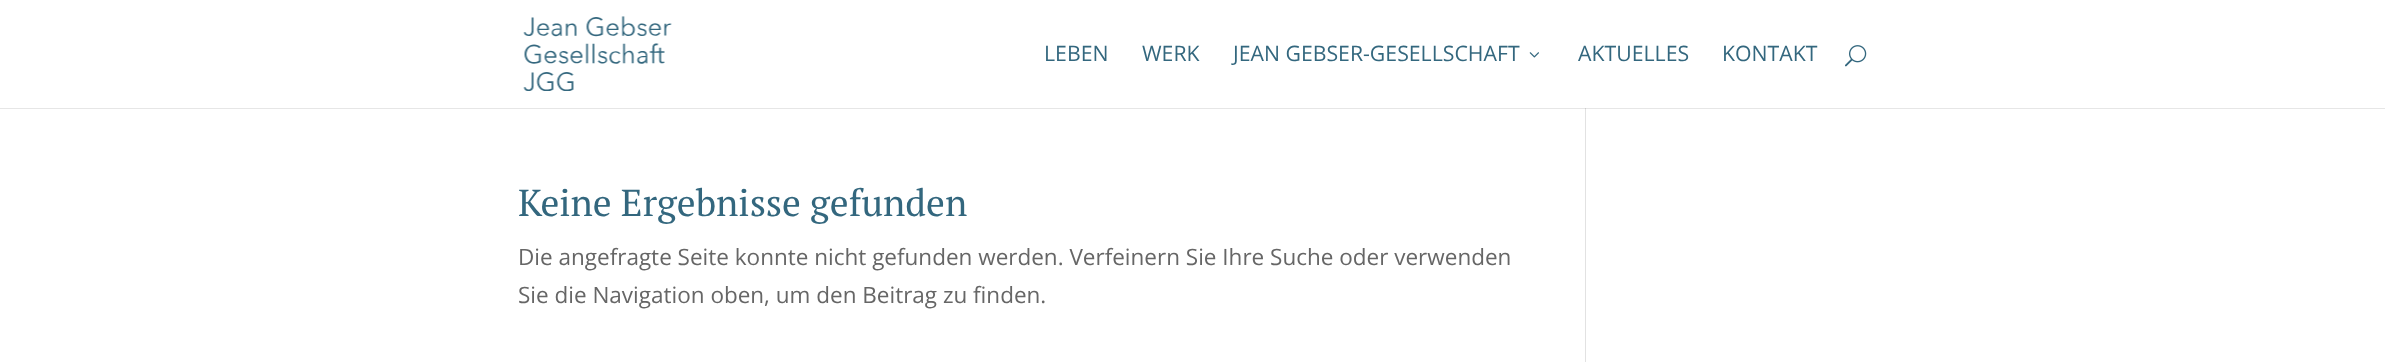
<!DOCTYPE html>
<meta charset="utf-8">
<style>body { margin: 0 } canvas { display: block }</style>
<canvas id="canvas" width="2385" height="362"></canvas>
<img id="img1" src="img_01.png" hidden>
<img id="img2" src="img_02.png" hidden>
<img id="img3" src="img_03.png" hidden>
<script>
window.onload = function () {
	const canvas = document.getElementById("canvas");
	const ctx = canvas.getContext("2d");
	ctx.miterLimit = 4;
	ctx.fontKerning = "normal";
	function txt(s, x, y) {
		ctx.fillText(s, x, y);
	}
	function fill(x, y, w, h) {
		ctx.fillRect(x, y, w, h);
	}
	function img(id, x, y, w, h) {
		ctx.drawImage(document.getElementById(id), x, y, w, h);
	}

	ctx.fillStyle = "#FFFFFF";
	fill(0, 0, 2385, 362);
	ctx.fillStyle = "#E6E6E6";
	fill(0, 108, 2385, 1);
	img("img1", 523, 16, 149, 75);
	img("img2", 1529, 52, 10, 6);
	img("img3", 1845, 45, 22, 22);
	ctx.fillStyle = "#E2E2E2";
	fill(1585, 108, 1, 254);
	ctx.fillStyle = "#CBCBCB";
	fill(1585, 108, 1, 1);
	ctx.font = "21.25px Open Sans";
	ctx.fillStyle = "#33677E";
	txt("LEBEN", 1044, 61);
	txt("WERK", 1142, 61);
	txt("JEAN GEBSER-GESELLSCHAFT", 1233, 61);
	txt("AKTUELLES", 1578, 61);
	txt("KONTAKT", 1722, 61);
	ctx.font = "37.5px PT Serif";
	txt("Keine Ergebnisse gefunden", 518, 216);
	ctx.font = "22.5px Open Sans";
	ctx.fillStyle = "#666666";
	txt("Die angefragte Seite konnte nicht gefunden werden. Verfeinern Sie Ihre Suche oder verwenden", 518, 265);
	txt("Sie die Navigation oben, um den Beitrag zu finden.", 518, 303);
};
</script>
